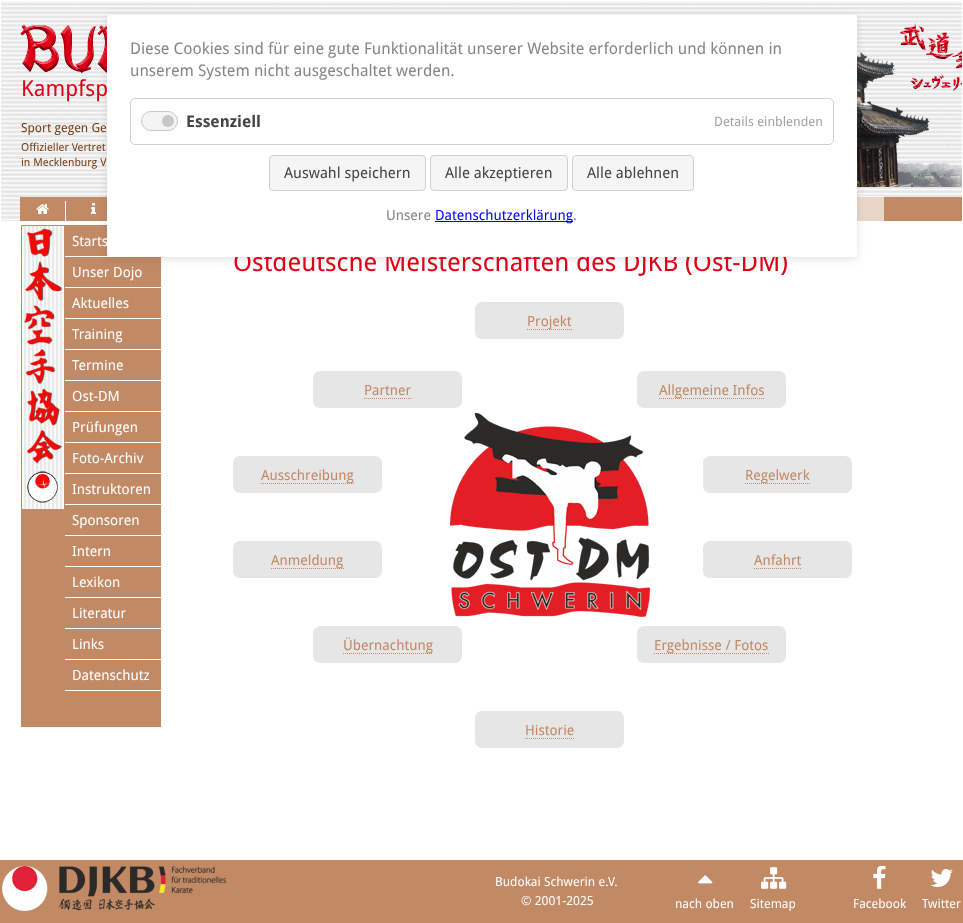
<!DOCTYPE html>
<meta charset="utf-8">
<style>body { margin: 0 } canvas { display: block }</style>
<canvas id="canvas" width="963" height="923"></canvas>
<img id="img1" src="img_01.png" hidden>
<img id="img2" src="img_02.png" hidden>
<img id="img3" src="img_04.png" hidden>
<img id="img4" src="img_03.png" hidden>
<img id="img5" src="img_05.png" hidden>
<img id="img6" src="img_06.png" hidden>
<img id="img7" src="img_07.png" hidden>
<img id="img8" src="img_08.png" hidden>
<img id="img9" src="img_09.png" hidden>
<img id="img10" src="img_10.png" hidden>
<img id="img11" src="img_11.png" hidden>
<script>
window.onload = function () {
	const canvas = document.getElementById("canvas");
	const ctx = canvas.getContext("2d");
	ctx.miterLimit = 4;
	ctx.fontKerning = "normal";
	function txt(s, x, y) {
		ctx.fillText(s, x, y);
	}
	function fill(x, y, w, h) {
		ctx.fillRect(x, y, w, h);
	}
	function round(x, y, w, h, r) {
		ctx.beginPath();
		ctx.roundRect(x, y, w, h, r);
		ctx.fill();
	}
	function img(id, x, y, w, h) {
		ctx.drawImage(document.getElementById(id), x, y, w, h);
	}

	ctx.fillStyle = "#FFFFFF";
	fill(0, 0, 963, 923);
	img("img1", 0, 0, 963, 3);
	img("img2", 1, 1, 961, 220);
	img("img3", 91, 203, 5, 11);
	ctx.fillStyle = "rgba(255, 255, 255, 0.65)";
	fill(857, 196, 27, 25);
	ctx.fillStyle = "#C28965";
	fill(21, 225, 140, 502);
	ctx.fillStyle = "#FFFFFF";
	fill(65, 256, 45, 1);
	ctx.fillStyle = "rgba(99, 99, 99, 0.2)";
	ctx.filter = "blur(4px)";
	ctx.beginPath();
	ctx.roundRect(107, 17, 750, 242, 3);
	ctx.fill();
	ctx.filter = "none";
	ctx.fillStyle = "#FFFFFF";
	fill(65, 201, 1, 24);
	img("img4", 36, 204, 13, 10);
	img("img5", 22, 226, 42, 283);
	fill(65, 287, 96, 1);
	fill(65, 318, 96, 1);
	fill(65, 349, 96, 1);
	fill(65, 380, 96, 1);
	fill(65, 411, 96, 1);
	fill(65, 442, 96, 1);
	fill(65, 473, 96, 1);
	fill(65, 504, 96, 1);
	fill(65, 535, 96, 1);
	fill(65, 566, 96, 1);
	fill(65, 597, 96, 1);
	fill(65, 628, 96, 1);
	fill(65, 659, 96, 1);
	fill(65, 690, 96, 1);
	img("img6", 450, 413, 200, 204);
	ctx.fillStyle = "#E6E6E6";
	round(475, 302, 149, 37, 7);
	ctx.beginPath();
	ctx.moveTo(527, 329.5);
	ctx.lineTo(572, 329.5);
	ctx.strokeStyle = "#C28965";
	ctx.setLineDash([1, 1]);
	ctx.stroke();
	round(313, 371, 149, 37, 7);
	ctx.beginPath();
	ctx.moveTo(364, 398.5);
	ctx.lineTo(411, 398.5);
	ctx.stroke();
	round(637, 371, 149, 37, 7);
	ctx.beginPath();
	ctx.moveTo(659, 398.5);
	ctx.lineTo(764, 398.5);
	ctx.stroke();
	round(233, 456, 149, 37, 7);
	ctx.beginPath();
	ctx.moveTo(261, 483.5);
	ctx.lineTo(354, 483.5);
	ctx.stroke();
	round(703, 456, 149, 37, 7);
	ctx.beginPath();
	ctx.moveTo(745, 483.5);
	ctx.lineTo(810, 483.5);
	ctx.stroke();
	round(233, 541, 149, 37, 7);
	ctx.beginPath();
	ctx.moveTo(271, 568.5);
	ctx.lineTo(344, 568.5);
	ctx.stroke();
	round(703, 541, 149, 37, 7);
	ctx.beginPath();
	ctx.moveTo(754, 568.5);
	ctx.lineTo(801, 568.5);
	ctx.stroke();
	round(313, 626, 149, 37, 7);
	ctx.beginPath();
	ctx.moveTo(343, 653.5);
	ctx.lineTo(432, 653.5);
	ctx.stroke();
	round(637, 626, 149, 37, 7);
	ctx.beginPath();
	ctx.moveTo(654, 653.5);
	ctx.lineTo(769, 653.5);
	ctx.stroke();
	round(475, 711, 149, 37, 7);
	ctx.beginPath();
	ctx.moveTo(525, 738.5);
	ctx.lineTo(574, 738.5);
	ctx.stroke();
	ctx.fillStyle = "#C28965";
	fill(0, 860, 963, 63);
	img("img7", 2, 866, 224, 45);
	img("img8", 698, 875, 15, 9);
	img("img9", 761, 867, 26, 22);
	img("img10", 873, 866, 13, 23);
	img("img11", 930, 869, 23, 18);
	ctx.font = "22px Droid Sans";
	ctx.fillStyle = "#DF0118";
	txt("Kampfsp", 21, 96);
	ctx.font = "12.5px Droid Sans";
	ctx.fillStyle = "#773D14";
	txt("Sport gegen Ge", 21, 132);
	ctx.font = "11px Droid Sans";
	txt("Offizieller Vertret", 21, 151);
	txt("in Mecklenburg V", 21, 166);
	ctx.font = "14px Droid Sans";
	ctx.fillStyle = "#FFFFFF";
	txt("Starts", 72, 246);
	txt("Unser Dojo", 72, 277);
	txt("Aktuelles", 72, 308);
	txt("Training", 72, 339);
	txt("Termine", 72, 370);
	txt("Ost-DM", 72, 401);
	txt("Prüfungen", 72, 432);
	txt("Foto-Archiv", 72, 463);
	txt("Instruktoren", 72, 494);
	txt("Sponsoren", 72, 525);
	txt("Intern", 72, 556);
	txt("Lexikon", 72, 587);
	txt("Literatur", 72, 618);
	txt("Links", 72, 649);
	txt("Datenschutz", 72, 680);
	ctx.font = "25.7px Droid Sans";
	ctx.fillStyle = "#DF0118";
	txt("Ostdeutsche Meisterschaften des DJKB (Ost-DM)", 233, 271);
	ctx.fillStyle = "#FFFFFF";
	round(107, 15, 750, 242, 3);
	ctx.beginPath();
	ctx.roundRect(130.5, 98.5, 703, 46, 4.5);
	ctx.strokeStyle = "#D0D0D0";
	ctx.setLineDash([]);
	ctx.stroke();
	ctx.fillStyle = "#F4F4F4";
	ctx.beginPath();
	ctx.roundRect(141.5, 111.5, 36, 19, 9.5);
	ctx.fill();
	ctx.strokeStyle = "#C8C7C5";
	ctx.stroke();
	ctx.fillStyle = "#C8C7C5";
	ctx.beginPath();
	ctx.arc(168, 121, 6, 0, Math.PI * 2);
	ctx.fill();
	ctx.font = "bold 16px Droid Sans";
	ctx.fillStyle = "#444444";
	txt("Essenziell", 186, 127);
	ctx.font = "13px Droid Sans";
	ctx.fillStyle = "#A2A2A2";
	txt("Details einblenden", 714, 126);
	ctx.font = "14px Droid Sans";
	ctx.fillStyle = "#868686";
	txt(".", 573, 220);
	ctx.fillStyle = "#0000FF";
	fill(435, 221, 138, 1);
	txt("Datenschutzerklärung", 435, 220);
	ctx.fillStyle = "#868686";
	txt("Unsere", 386, 220);
	ctx.fillStyle = "#F5F5F5";
	ctx.beginPath();
	ctx.roundRect(572.5, 155.5, 121, 35, 3.5);
	ctx.fill();
	ctx.strokeStyle = "#CFCFCF";
	ctx.stroke();
	ctx.font = "15px Droid Sans";
	ctx.fillStyle = "#444444";
	txt("Alle ablehnen", 587, 178);
	ctx.fillStyle = "#F5F5F5";
	ctx.beginPath();
	ctx.roundRect(430.5, 155.5, 137, 35, 3.5);
	ctx.fill();
	ctx.stroke();
	ctx.fillStyle = "#444444";
	txt("Alle akzeptieren", 445, 178);
	ctx.fillStyle = "#F5F5F5";
	ctx.beginPath();
	ctx.roundRect(269.5, 155.5, 156, 35, 3.5);
	ctx.fill();
	ctx.stroke();
	ctx.fillStyle = "#444444";
	txt("Auswahl speichern", 284, 178);
	ctx.font = "16px Droid Sans";
	ctx.fillStyle = "#868686";
	txt("unserem System nicht ausgeschaltet werden.", 130, 76);
	txt("Diese Cookies sind für eine gute Funktionalität unserer Website erforderlich und können in", 130, 54);
	ctx.font = "14px Droid Sans";
	ctx.fillStyle = "#C28965";
	txt("Projekt", 527, 326);
	txt("Partner", 364, 395);
	txt("Allgemeine Infos", 659, 395);
	txt("Ausschreibung", 261, 480);
	txt("Regelwerk", 745, 480);
	txt("Anmeldung", 271, 565);
	txt("Anfahrt", 754, 565);
	txt("Übernachtung", 343, 650);
	txt("Ergebnisse / Fotos", 654, 650);
	txt("Historie", 525, 735);
	ctx.font = "12.5px Droid Sans";
	ctx.fillStyle = "#FFFFFF";
	txt("Budokai Schwerin e.V.", 495, 886);
	txt("© 2001-2025", 521, 905);
	txt("nach oben", 675, 908);
	txt("Sitemap", 750, 908);
	txt("Facebook", 853, 908);
	txt("Twitter", 922, 908);
};
</script>
